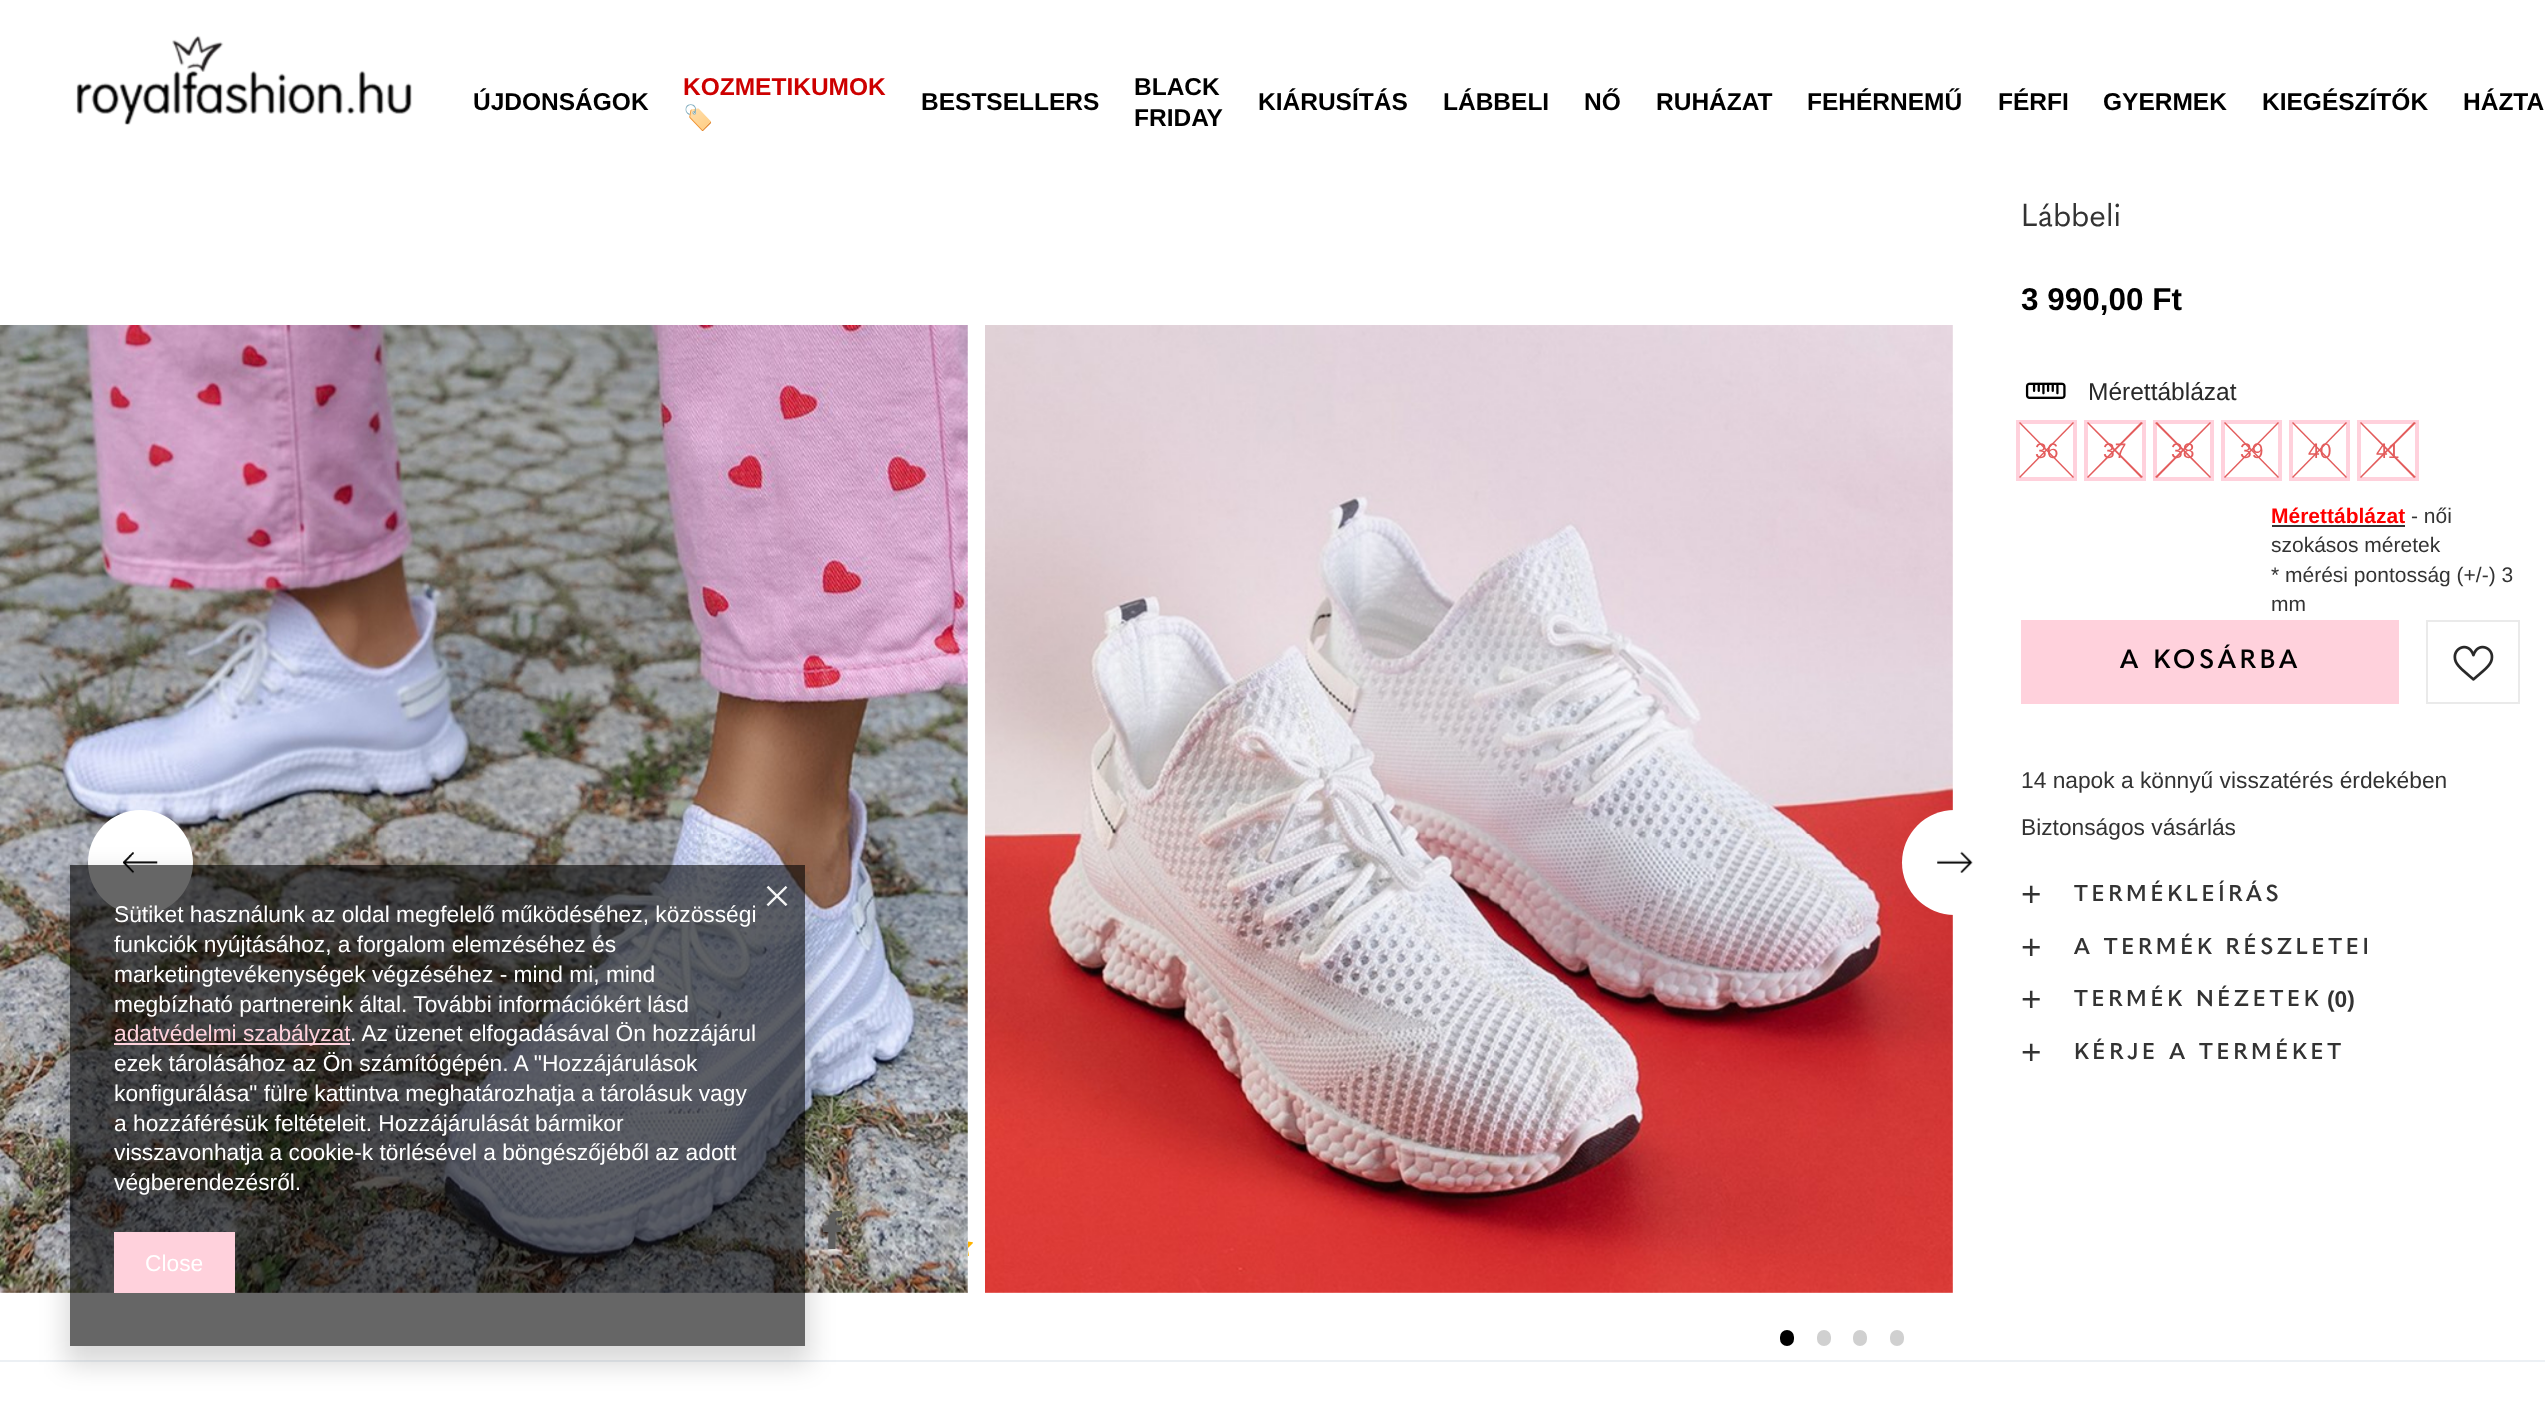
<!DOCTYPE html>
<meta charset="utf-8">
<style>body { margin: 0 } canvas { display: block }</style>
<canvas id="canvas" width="2545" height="1415"></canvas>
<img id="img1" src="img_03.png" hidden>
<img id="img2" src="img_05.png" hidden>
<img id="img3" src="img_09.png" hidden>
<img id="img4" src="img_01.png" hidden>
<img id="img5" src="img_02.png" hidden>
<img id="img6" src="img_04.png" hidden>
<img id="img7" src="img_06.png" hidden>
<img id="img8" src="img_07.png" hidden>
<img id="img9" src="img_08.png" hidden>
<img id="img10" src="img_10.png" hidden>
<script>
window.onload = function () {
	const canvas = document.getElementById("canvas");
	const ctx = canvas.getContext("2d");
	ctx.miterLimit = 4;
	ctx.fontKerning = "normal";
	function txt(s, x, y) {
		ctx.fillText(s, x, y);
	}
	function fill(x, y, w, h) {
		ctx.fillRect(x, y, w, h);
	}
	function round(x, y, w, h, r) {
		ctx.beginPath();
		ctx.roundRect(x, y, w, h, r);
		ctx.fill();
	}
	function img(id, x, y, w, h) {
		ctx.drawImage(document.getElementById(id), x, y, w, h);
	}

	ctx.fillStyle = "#FFFFFF";
	fill(0, 0, 2545, 1415);
	img("img1", 0, 325, 968, 968);
	ctx.beginPath();
	ctx.arc(140.5, 862.5, 52.5, 0, Math.PI * 2);
	ctx.fill();
	img("img2", 123, 852, 35, 22);
	img("img3", 823, 1211, 19, 38);
	ctx.fillStyle = "#ECF0F4";
	fill(0, 1360, 2545, 2);
	ctx.save();
	ctx.beginPath();
	ctx.moveTo(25, 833);
	ctx.lineTo(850, 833);
	ctx.lineTo(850, 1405);
	ctx.lineTo(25, 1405);
	ctx.closePath();
	ctx.moveTo(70, 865);
	ctx.lineTo(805, 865);
	ctx.lineTo(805, 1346);
	ctx.lineTo(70, 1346);
	ctx.closePath();
	ctx.clip("evenodd");
	ctx.fillStyle = "rgba(0, 0, 0, 0.15)";
	ctx.filter = "blur(13px)";
	ctx.beginPath();
	ctx.rect(65, 873, 745, 492);
	ctx.fill();
	ctx.filter = "none";
	ctx.restore();
	ctx.fillStyle = "rgba(0, 0, 0, 0.6)";
	fill(70, 865, 735, 481);
	img("img4", 766, 885, 22, 22);
	ctx.fillStyle = "#FFD1DC";
	fill(114, 1043, 236, 2);
	fill(114, 1232, 121, 61);
	img("img5", 76, 35, 336, 90);
	img("img6", 985, 325, 968, 968);
	ctx.fillStyle = "#FFFFFF";
	ctx.beginPath();
	ctx.arc(1954.5, 862.5, 52.5, 0, Math.PI * 2);
	ctx.fill();
	img("img7", 1937, 851, 36, 22);
	ctx.fillStyle = "#000000";
	round(1780, 1330, 14, 16, 7);
	ctx.fillStyle = "#D0D0D0";
	ctx.beginPath();
	ctx.roundRect(1818, 1331, 12, 14, 6);
	ctx.fill();
	ctx.strokeStyle = "#D0D0D0";
	ctx.lineWidth = 2;
	ctx.stroke();
	ctx.beginPath();
	ctx.roundRect(1854, 1331, 12, 14, 6);
	ctx.fill();
	ctx.stroke();
	ctx.beginPath();
	ctx.roundRect(1891, 1331, 12, 14, 6);
	ctx.fill();
	ctx.stroke();
	img("img8", 2025, 382, 41, 17);
	ctx.strokeStyle = "#FFD1DC";
	ctx.lineWidth = 4;
	ctx.strokeRect(2018, 422, 57, 57);
	ctx.fillStyle = "#E35C5C";
	ctx.beginPath();
	ctx.moveTo(2020, 422);
	ctx.lineTo(2074, 477);
	ctx.lineTo(2073, 478);
	ctx.lineTo(2019, 423);
	ctx.closePath();
	ctx.fill();
	ctx.beginPath();
	ctx.moveTo(2019, 477);
	ctx.lineTo(2073, 422);
	ctx.lineTo(2074, 423);
	ctx.lineTo(2020, 478);
	ctx.closePath();
	ctx.fill();
	ctx.strokeRect(2086, 422, 58, 57);
	ctx.beginPath();
	ctx.moveTo(2088, 422);
	ctx.lineTo(2143, 477);
	ctx.lineTo(2141, 478);
	ctx.lineTo(2087, 423);
	ctx.closePath();
	ctx.fill();
	ctx.beginPath();
	ctx.moveTo(2087, 477);
	ctx.lineTo(2141, 422);
	ctx.lineTo(2143, 423);
	ctx.lineTo(2088, 478);
	ctx.closePath();
	ctx.fill();
	ctx.strokeRect(2155, 422, 57, 57);
	ctx.beginPath();
	ctx.moveTo(2157, 422);
	ctx.lineTo(2211, 477);
	ctx.lineTo(2210, 478);
	ctx.lineTo(2155, 423);
	ctx.closePath();
	ctx.fill();
	ctx.beginPath();
	ctx.moveTo(2155, 477);
	ctx.lineTo(2210, 422);
	ctx.lineTo(2211, 423);
	ctx.lineTo(2157, 478);
	ctx.closePath();
	ctx.fill();
	ctx.strokeRect(2223, 422, 57, 57);
	ctx.beginPath();
	ctx.moveTo(2225, 422);
	ctx.lineTo(2279, 477);
	ctx.lineTo(2278, 478);
	ctx.lineTo(2224, 423);
	ctx.closePath();
	ctx.fill();
	ctx.beginPath();
	ctx.moveTo(2224, 477);
	ctx.lineTo(2278, 422);
	ctx.lineTo(2279, 423);
	ctx.lineTo(2225, 478);
	ctx.closePath();
	ctx.fill();
	ctx.strokeRect(2291, 422, 57, 57);
	ctx.beginPath();
	ctx.moveTo(2293, 422);
	ctx.lineTo(2347, 477);
	ctx.lineTo(2346, 478);
	ctx.lineTo(2292, 423);
	ctx.closePath();
	ctx.fill();
	ctx.beginPath();
	ctx.moveTo(2292, 477);
	ctx.lineTo(2346, 422);
	ctx.lineTo(2347, 423);
	ctx.lineTo(2293, 478);
	ctx.closePath();
	ctx.fill();
	ctx.strokeRect(2359, 422, 58, 57);
	ctx.beginPath();
	ctx.moveTo(2361, 422);
	ctx.lineTo(2416, 477);
	ctx.lineTo(2414, 478);
	ctx.lineTo(2360, 423);
	ctx.closePath();
	ctx.fill();
	ctx.beginPath();
	ctx.moveTo(2360, 477);
	ctx.lineTo(2414, 422);
	ctx.lineTo(2416, 423);
	ctx.lineTo(2361, 478);
	ctx.closePath();
	ctx.fill();
	ctx.fillStyle = "#333333";
	fill(2272, 525, 133, 2);
	ctx.fillStyle = "#FFD1DC";
	fill(2021, 620, 378, 84);
	ctx.strokeStyle = "#EAEAEA";
	ctx.lineWidth = 2;
	ctx.strokeRect(2427, 621, 92, 82);
	img("img9", 2453, 645, 41, 36);
	img("img10", 968, 1241, 5, 15);
	ctx.font = "22.75px Liberation Sans";
	ctx.fillStyle = "#FFFFFF";
	txt("Sütiket használunk az oldal megfelelő működéséhez, közösségi", 114, 922);
	txt("funkciók nyújtásához, a forgalom elemzéséhez és", 114, 952);
	txt("marketingtevékenységek végzéséhez - mind mi, mind", 114, 982);
	txt("megbízható partnereink által. További információkért lásd", 114, 1012);
	ctx.fillStyle = "#FFD1DC";
	txt("adatvédelmi szabályzat", 114, 1041);
	ctx.fillStyle = "#FFFFFF";
	txt(". Az üzenet elfogadásával Ön hozzájárul", 350, 1041);
	txt("ezek tárolásához az Ön számítógépén. A \"Hozzájárulások", 114, 1071);
	txt("konfigurálása\" fülre kattintva meghatározhatja a tárolásuk vagy", 114, 1101);
	txt("a hozzáférésük feltételeit. Hozzájárulását bármikor", 114, 1131);
	txt("visszavonhatja a cookie-k törlésével a böngészőjéből az adott", 114, 1160);
	txt("végberendezésről.", 114, 1190);
	txt("Close", 145, 1271);
	ctx.font = "bold 24.5px Liberation Sans";
	ctx.fillStyle = "#000000";
	txt("ÚJDONSÁGOK", 473, 110);
	ctx.fillStyle = "#CD0000";
	txt("KOZMETIKUMOK", 683, 95);
	ctx.font = "bold 24.5px Noto Color Emoji";
	txt("🏷️", 683, 126);
	ctx.font = "bold 24.5px Liberation Sans";
	ctx.fillStyle = "#000000";
	txt("BESTSELLERS", 921, 110);
	txt("BLACK", 1134, 95);
	txt("FRIDAY", 1134, 126);
	txt("KIÁRUSÍTÁS", 1258, 110);
	txt("LÁBBELI", 1443, 110);
	txt("NŐ", 1584, 110);
	txt("RUHÁZAT", 1656, 110);
	txt("FEHÉRNEMŰ", 1807, 110);
	txt("FÉRFI", 1998, 110);
	txt("GYERMEK", 2103, 110);
	txt("KIEGÉSZÍTŐK", 2262, 110);
	txt("HÁZTA", 2463, 110);
	ctx.font = "31.5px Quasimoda";
	ctx.fillStyle = "#333333";
	txt("Lábbeli", 2021, 226);
	ctx.font = "bold 31.5px Liberation Sans";
	ctx.fillStyle = "#000000";
	txt("3 990,00 Ft", 2021, 310);
	ctx.font = "24.5px Liberation Sans";
	ctx.fillStyle = "#292929";
	txt("Mérettáblázat", 2088, 400);
	ctx.font = "21px Liberation Sans";
	ctx.fillStyle = "#E35C5C";
	txt("36", 2035, 458);
	txt("37", 2103, 458);
	txt("38", 2171, 458);
	txt("39", 2240, 458);
	txt("40", 2308, 458);
	txt("41", 2376, 458);
	ctx.font = "bold 21px Liberation Sans";
	ctx.fillStyle = "#FF0000";
	txt("Mérettáblázat", 2271, 523);
	ctx.font = "21px Liberation Sans";
	ctx.fillStyle = "#333333";
	txt("- női", 2411, 523);
	txt("szokásos méretek", 2271, 552);
	txt("* mérési pontosság (+/-) 3", 2271, 582);
	txt("mm", 2271, 611);
	ctx.letterSpacing = "3.7px";
	ctx.font = "600 26.25px Quasimoda";
	ctx.fillStyle = "#000000";
	txt("A KOSÁRBA", 2120, 668);
	ctx.letterSpacing = "0px";
	ctx.font = "22.75px Liberation Sans";
	ctx.fillStyle = "#333333";
	txt("14 napok a könnyű visszatérés érdekében", 2021, 788);
	txt("Biztonságos vásárlás", 2021, 835);
	ctx.font = "35px Liberation Sans";
	txt("+", 2021, 906);
	ctx.letterSpacing = "3.7px";
	ctx.font = "600 22.75px Quasimoda";
	txt("TERMÉKLEÍRÁS", 2074, 901);
	ctx.letterSpacing = "0px";
	ctx.font = "35px Liberation Sans";
	txt("+", 2021, 959);
	ctx.letterSpacing = "3.7px";
	ctx.font = "600 22.75px Quasimoda";
	txt("A TERMÉK RÉSZLETEI", 2074, 954);
	ctx.letterSpacing = "0px";
	ctx.font = "35px Liberation Sans";
	txt("+", 2021, 1011);
	ctx.letterSpacing = "3.7px";
	ctx.font = "600 22.75px Quasimoda";
	txt("TERMÉK NÉZETEK", 2074, 1006);
	ctx.letterSpacing = "0px";
	ctx.font = "bold 22.75px Liberation Sans";
	txt("(0)", 2327, 1007);
	ctx.font = "35px Liberation Sans";
	txt("+", 2021, 1064);
	ctx.letterSpacing = "3.7px";
	ctx.font = "600 22.75px Quasimoda";
	txt("KÉRJE A TERMÉKET", 2074, 1059);
};
</script>
